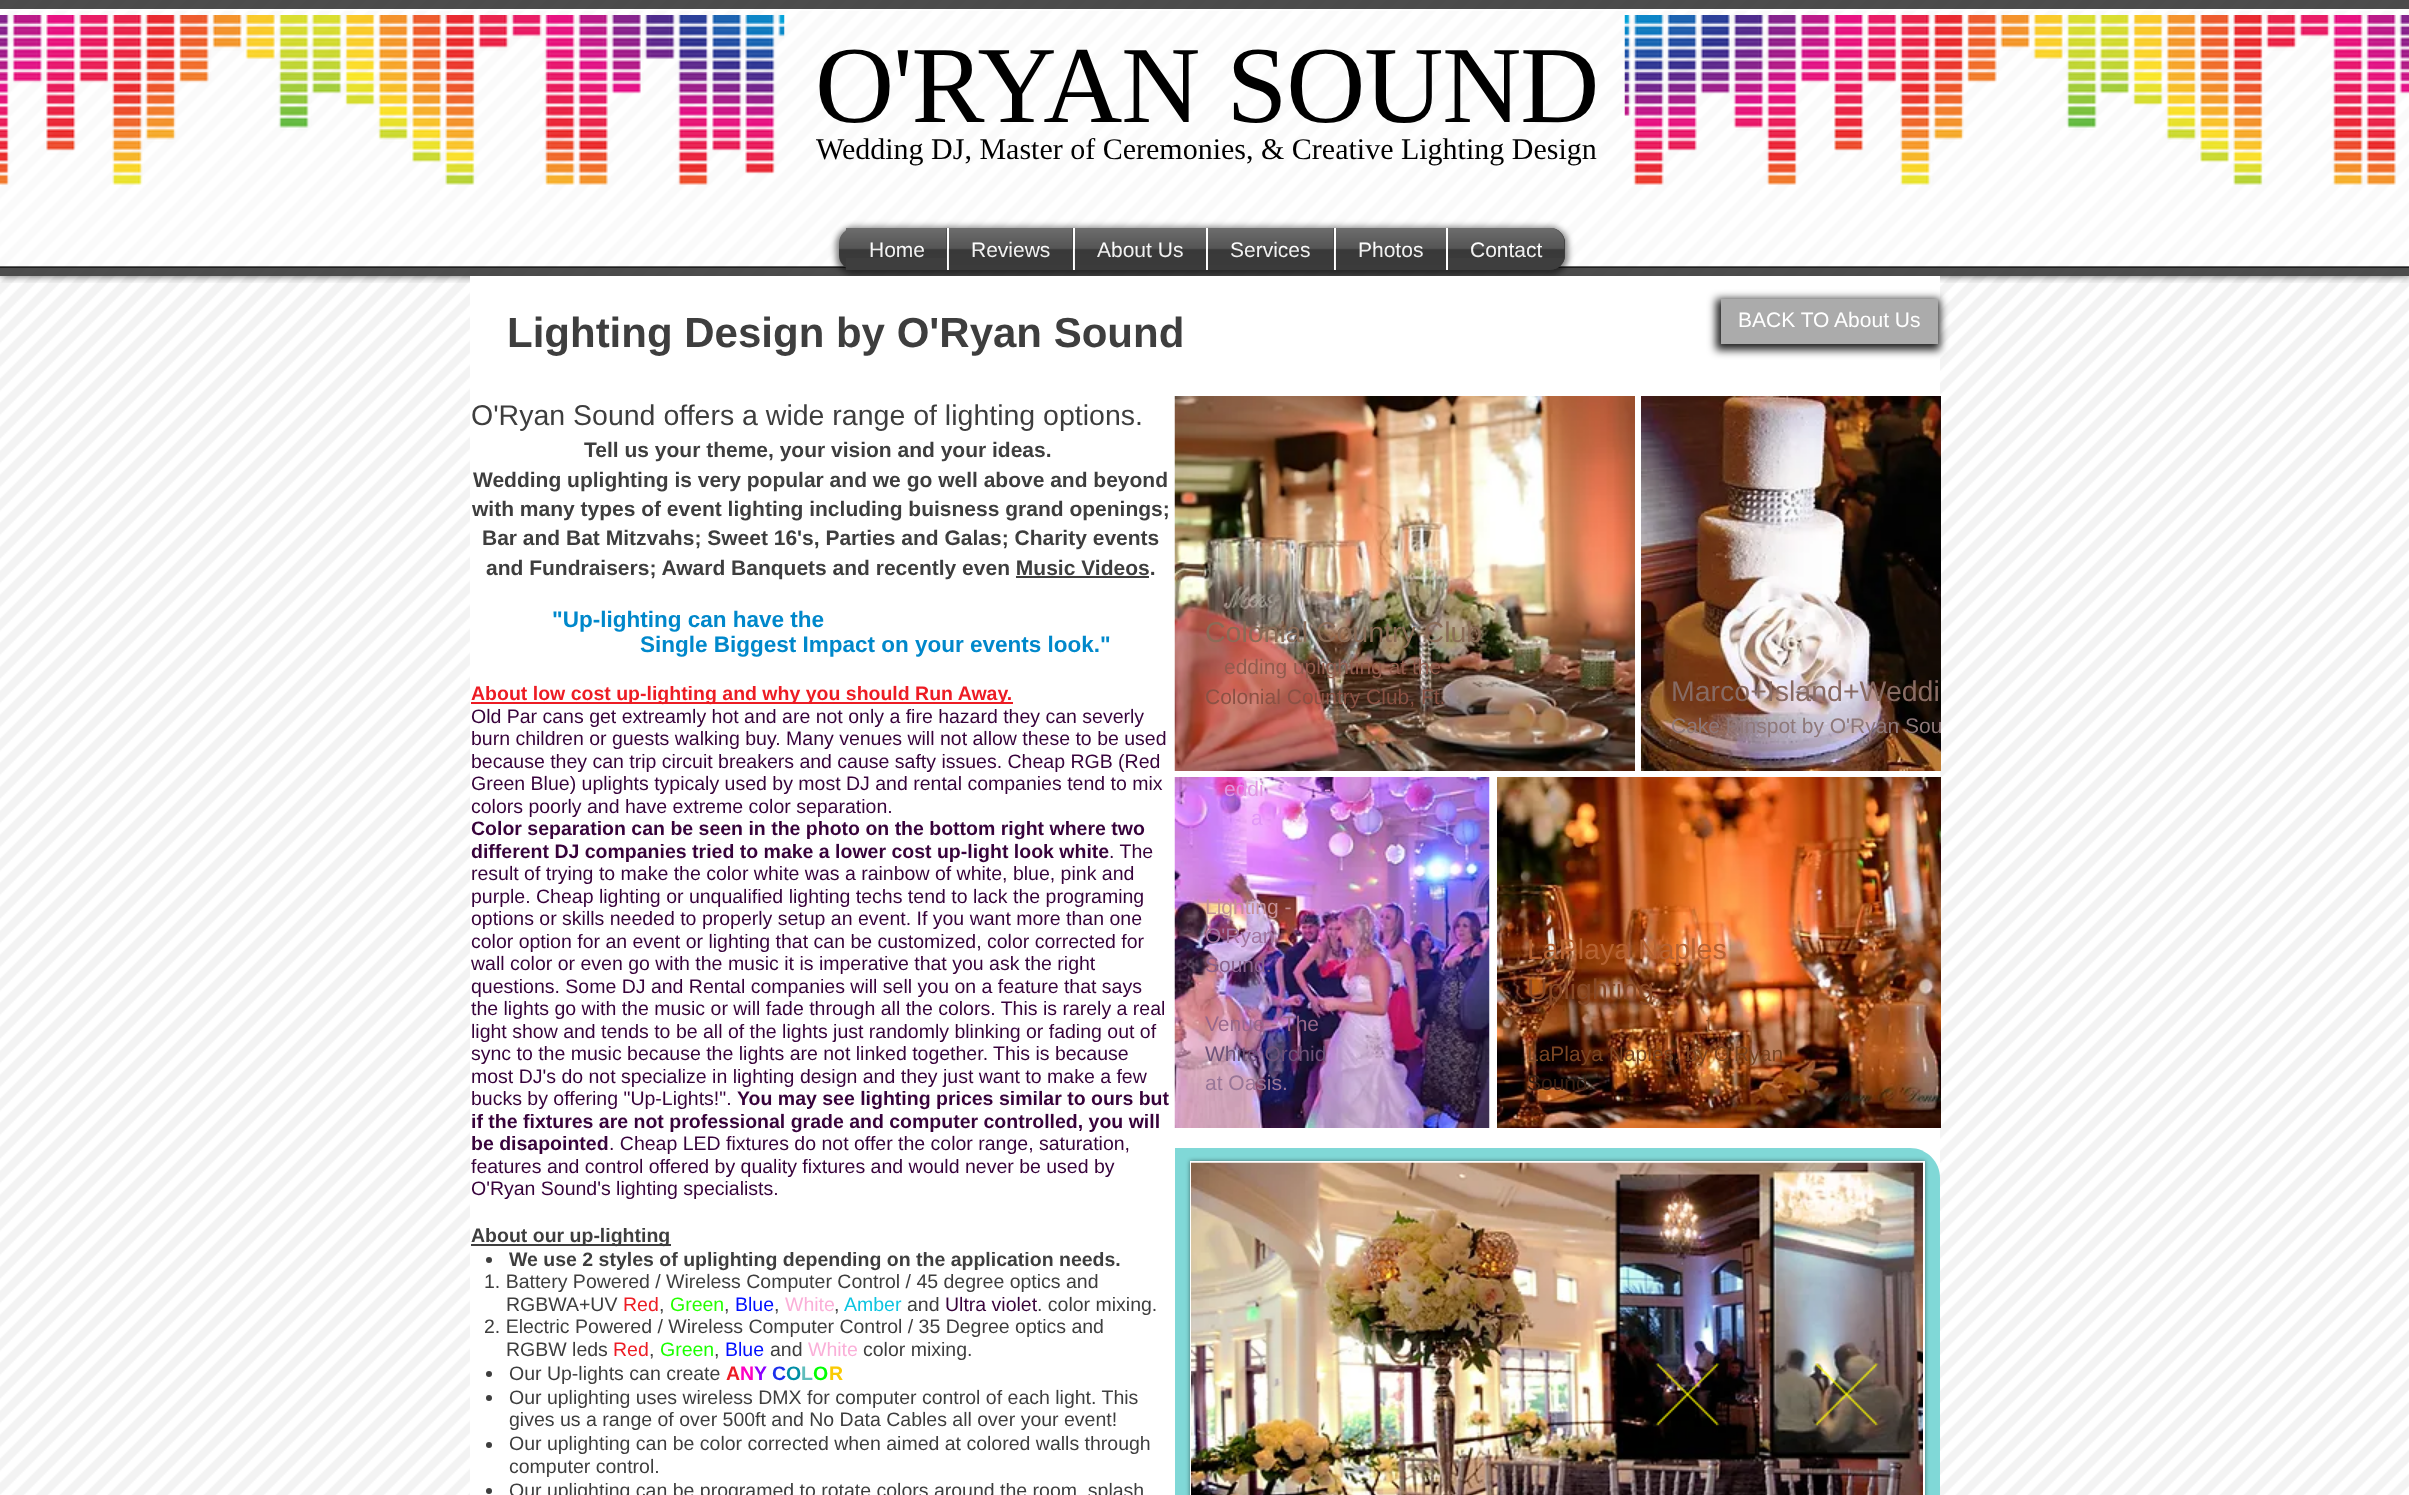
<!DOCTYPE html>
<meta charset="utf-8">
<style>body { margin: 0 } canvas { display: block }</style>
<canvas id="canvas" width="2409" height="1495"></canvas>
<img id="img1" src="img_01.png" hidden>
<img id="img2" src="img_02.png" hidden>
<img id="img3" src="img_03.png" hidden>
<img id="img4" src="img_04.png" hidden>
<img id="img5" src="img_11.png" hidden>
<img id="img6" src="img_12.png" hidden>
<img id="img7" src="img_13.png" hidden>
<img id="img8" src="img_14.png" hidden>
<img id="img9" src="img_15.png" hidden>
<img id="img10" src="img_16.png" hidden>
<img id="img11" src="img_17.png" hidden>
<img id="img12" src="img_05.png" hidden>
<img id="img13" src="img_06.png" hidden>
<img id="img14" src="img_07.png" hidden>
<img id="img15" src="img_08.png" hidden>
<img id="img16" src="img_09.png" hidden>
<img id="img17" src="img_10.png" hidden>
<script>
window.onload = function () {
	const canvas = document.getElementById("canvas");
	const ctx = canvas.getContext("2d");
	ctx.miterLimit = 4;
	ctx.fontKerning = "normal";
	function txt(s, x, y) {
		ctx.fillText(s, x, y);
	}
	function fill(x, y, w, h) {
		ctx.fillRect(x, y, w, h);
	}
	function round(x, y, w, h, r) {
		ctx.beginPath();
		ctx.roundRect(x, y, w, h, r);
		ctx.fill();
	}
	function img(id, x, y, w, h) {
		ctx.drawImage(document.getElementById(id), x, y, w, h);
	}

	ctx.fillStyle = "#FFFFFF";
	fill(0, 0, 2409, 1495);
	img("img1", 0, 0, 2409, 1495);
	ctx.save();
	ctx.beginPath();
	ctx.rect(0, 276, 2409, 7);
	ctx.clip();
	ctx.fillStyle = "rgba(0, 0, 0, 0.6)";
	ctx.filter = "blur(4px)";
	ctx.beginPath();
	ctx.rect(0, 0, 2409, 276);
	ctx.fill();
	ctx.filter = "none";
	ctx.restore();
	ctx.fillStyle = "rgba(255, 255, 255, 0.6)";
	fill(0, 0, 2409, 276);
	ctx.fillStyle = "rgba(0, 0, 0, 0.6)";
	fill(0, 266, 2409, 2);
	ctx.fillStyle = "rgba(255, 255, 255, 0.6)";
	fill(10, 9, 2386, 2);
	ctx.fillStyle = "rgba(0, 0, 0, 0.7)";
	fill(0, 0, 2409, 9);
	fill(0, 267, 2409, 9);
	img("img2", 0, 15, 785, 170);
	img("img3", 1624, 15, 785, 170);
	ctx.fillStyle = "rgba(0, 0, 0, 0.5)";
	ctx.filter = "blur(3px)";
	ctx.beginPath();
	ctx.roundRect(836, 227, 732, 48, 18);
	ctx.fill();
	ctx.filter = "none";
	ctx.fillStyle = "#3E3E3E";
	round(839, 228, 726, 42, 15);
	img("img4", 839, 228, 726, 38);
	fill(846, 228, 101, 42);
	fill(949, 228, 124, 38);
	ctx.fillStyle = "#FFFFFF";
	fill(947, 228, 2, 42);
	ctx.fillStyle = "#3E3E3E";
	fill(1075, 228, 131, 38);
	ctx.fillStyle = "#FFFFFF";
	fill(1073, 228, 2, 42);
	ctx.fillStyle = "#3E3E3E";
	fill(1208, 228, 126, 38);
	ctx.fillStyle = "#FFFFFF";
	fill(1206, 228, 2, 42);
	ctx.fillStyle = "#3E3E3E";
	fill(1336, 228, 110, 38);
	ctx.fillStyle = "#FFFFFF";
	fill(1334, 228, 2, 42);
	ctx.fillStyle = "#3E3E3E";
	ctx.beginPath();
	ctx.roundRect(1446, 228, 119, 42, [0, 15, 15, 0]);
	ctx.fill();
	ctx.fillStyle = "#FFFFFF";
	fill(1446, 228, 2, 42);
	fill(470, 276, 1470, 1219);
	ctx.fillStyle = "rgba(0, 0, 0, 0.87)";
	ctx.filter = "blur(4px)";
	ctx.beginPath();
	ctx.rect(1716, 299, 224, 51);
	ctx.fill();
	ctx.filter = "none";
	ctx.fillStyle = "#ABABAB";
	fill(1721, 299, 217, 45);
	ctx.fillStyle = "#3E3E3E";
	fill(1016, 576, 133, 2);
	ctx.fillStyle = "#ED1C24";
	fill(471, 702, 542, 2);
	ctx.fillStyle = "#3E3E3E";
	fill(471, 1244, 200, 2);
	ctx.beginPath();
	ctx.arc(489, 1260, 3, 0, Math.PI * 2);
	ctx.fill();
	ctx.beginPath();
	ctx.arc(489, 1374, 3, 0, Math.PI * 2);
	ctx.fill();
	ctx.beginPath();
	ctx.arc(489, 1398, 3, 0, Math.PI * 2);
	ctx.fill();
	ctx.beginPath();
	ctx.arc(489, 1445, 3, 0, Math.PI * 2);
	ctx.fill();
	ctx.beginPath();
	ctx.arc(489, 1491, 3, 0, Math.PI * 2);
	ctx.fill();
	img("img5", 1174, 396, 461, 375);
	img("img6", 1641, 396, 300, 375);
	img("img7", 1174, 777, 316, 351);
	img("img8", 1497, 777, 444, 351);
	ctx.fillStyle = "#80D8D7";
	ctx.beginPath();
	ctx.moveTo(1175, 1148);
	ctx.lineTo(1910, 1148);
	ctx.bezierCurveTo(1926.5, 1148, 1940, 1161.5, 1940, 1178);
	ctx.lineTo(1940, 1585);
	ctx.lineTo(1265, 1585);
	ctx.bezierCurveTo(1215.5, 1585, 1175, 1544.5, 1175, 1495);
	ctx.closePath();
	ctx.fill();
	ctx.fillStyle = "rgba(0, 0, 0, 0.5)";
	ctx.filter = "blur(2px)";
	ctx.beginPath();
	ctx.rect(1190, 1161, 735, 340);
	ctx.fill();
	ctx.filter = "none";
	ctx.fillStyle = "#FFFFFF";
	fill(1190, 1161, 735, 334);
	img("img9", 1191, 1162, 732, 333);
	img("img10", 1655, 1363, 65, 63);
	img("img11", 1814, 1363, 65, 63);
	ctx.letterSpacing = "-1.1px";
	ctx.wordSpacing = "1px";
	ctx.font = "109.5px Liberation Serif";
	ctx.fillStyle = "#000000";
	txt("O'RYAN SOUND", 815, 122);
	ctx.letterSpacing = "0px";
	ctx.wordSpacing = "0px";
	ctx.font = "30px Liberation Serif";
	txt("Wedding DJ, Master of Ceremonies, & Creative Lighting Design", 816, 159);
	ctx.font = "21px Liberation Sans";
	ctx.fillStyle = "#FFFFFF";
	txt("Home", 869, 257);
	img("img12", 846, 228, 101, 30);
	txt("Reviews", 971, 257);
	img("img13", 948, 228, 125, 42);
	txt("About Us", 1097, 257);
	img("img14", 1074, 228, 132, 42);
	txt("Services", 1230, 257);
	img("img15", 1207, 228, 127, 42);
	txt("Photos", 1358, 257);
	img("img16", 1335, 228, 111, 42);
	txt("Contact", 1470, 257);
	img("img17", 1448, 228, 117, 30);
	ctx.font = "bold 42px Liberation Sans";
	ctx.fillStyle = "#3E3E3E";
	txt("Lighting Design by O'Ryan Sound", 507, 347);
	ctx.font = "21px Liberation Sans";
	ctx.fillStyle = "#FFFFFF";
	txt("BACK TO About Us", 1738, 327);
	ctx.font = "28.5px Liberation Sans";
	ctx.fillStyle = "#3E3E3E";
	txt("O'Ryan Sound offers a wide range of lighting options.", 471, 425);
	ctx.font = "bold 21px Liberation Sans";
	txt("Tell us your theme, your vision and your ideas.", 584, 457);
	txt("Wedding uplighting is very popular and we go well above and beyond", 473, 487);
	txt("with many types of event lighting including buisness grand openings;", 472, 516);
	txt("Bar and Bat Mitzvahs; Sweet 16's, Parties and Galas; Charity events", 482, 545);
	txt("and Fundraisers; Award Banquets and recently even Music Videos.", 486, 575);
	ctx.font = "bold 22.5px Liberation Sans";
	ctx.fillStyle = "#0088CB";
	txt("\"Up-lighting can have the", 552, 627);
	txt("Single Biggest Impact on your events look.\"", 640, 652);
	ctx.font = "bold 19.5px Liberation Sans";
	ctx.fillStyle = "#ED1C24";
	txt("About low cost up-lighting and why you should Run Away.", 471, 700);
	ctx.font = "19.5px Liberation Sans";
	ctx.fillStyle = "#37023B";
	txt("Old Par cans get extreamly hot and are not only a fire hazard they can severly", 471, 723);
	txt("burn children or guests walking buy. Many venues will not allow these to be used", 471, 745);
	txt("because they can trip circuit breakers and cause safty issues. Cheap RGB (Red", 471, 768);
	txt("Green Blue) uplights typicaly used by most DJ and rental companies tend to mix", 471, 790);
	txt("colors poorly and have extreme color separation.", 471, 813);
	ctx.font = "bold 19.5px Liberation Sans";
	txt("Color separation can be seen in the photo on the bottom right where two", 471, 835);
	txt("different DJ companies tried to make a lower cost up-light look white", 471, 858);
	ctx.font = "19.5px Liberation Sans";
	txt(". The", 1109, 858);
	txt("result of trying to make the color white was a rainbow of white, blue, pink and", 471, 880);
	txt("purple. Cheap lighting or unqualified lighting techs tend to lack the programing", 471, 903);
	txt("options or skills needed to properly setup an event. If you want more than one", 471, 925);
	txt("color option for an event or lighting that can be customized, color corrected for", 471, 948);
	txt("wall color or even go with the music it is imperative that you ask the right", 471, 970);
	txt("questions. Some DJ and Rental companies will sell you on a feature that says", 471, 993);
	txt("the lights go with the music or will fade through all the colors. This is rarely a real", 471, 1015);
	txt("light show and tends to be all of the lights just randomly blinking or fading out of", 471, 1038);
	txt("sync to the music because the lights are not linked together. This is because", 471, 1060);
	txt("most DJ's do not specialize in lighting design and they just want to make a few", 471, 1083);
	txt("bucks by offering \"Up-Lights!\".", 471, 1105);
	ctx.font = "bold 19.5px Liberation Sans";
	txt("You may see lighting prices similar to ours but", 737, 1105);
	txt("if the fixtures are not professional grade and computer controlled, you will", 471, 1128);
	txt("be disapointed", 471, 1150);
	ctx.font = "19.5px Liberation Sans";
	txt(". Cheap LED fixtures do not offer the color range, saturation,", 609, 1150);
	txt("features and control offered by quality fixtures and would never be used by", 471, 1173);
	txt("O'Ryan Sound's lighting specialists.", 471, 1195);
	ctx.font = "bold 19.5px Liberation Sans";
	ctx.fillStyle = "#3E3E3E";
	txt("About our up-lighting", 471, 1242);
	txt("We use 2 styles of uplighting depending on the application needs.", 509, 1266);
	ctx.font = "19.5px Liberation Sans";
	txt("1. Battery Powered / Wireless Computer Control / 45 degree optics and", 484, 1288);
	txt("RGBWA+UV", 506, 1311);
	ctx.fillStyle = "#ED1C24";
	txt("Red", 623, 1311);
	ctx.fillStyle = "#3E3E3E";
	txt(",", 659, 1311);
	ctx.fillStyle = "#26FF00";
	txt("Green", 670, 1311);
	ctx.fillStyle = "#3E3E3E";
	txt(",", 724, 1311);
	ctx.fillStyle = "#000EFF";
	txt("Blue", 735, 1311);
	ctx.fillStyle = "#3E3E3E";
	txt(",", 774, 1311);
	ctx.fillStyle = "#FAAFD8";
	txt("White", 785, 1311);
	ctx.fillStyle = "#3E3E3E";
	txt(",", 834, 1311);
	ctx.fillStyle = "#0DC4E0";
	txt("Amber", 844, 1311);
	ctx.fillStyle = "#3E3E3E";
	txt("and", 907, 1311);
	ctx.fillStyle = "#37023B";
	txt("Ultra violet", 945, 1311);
	ctx.fillStyle = "#3E3E3E";
	txt(". color mixing.", 1037, 1311);
	txt("2. Electric Powered / Wireless Computer Control / 35 Degree optics and", 484, 1333);
	txt("RGBW leds", 506, 1356);
	ctx.fillStyle = "#ED1C24";
	txt("Red", 613, 1356);
	ctx.fillStyle = "#3E3E3E";
	txt(",", 649, 1356);
	ctx.fillStyle = "#1BFF00";
	txt("Green", 660, 1356);
	ctx.fillStyle = "#3E3E3E";
	txt(",", 714, 1356);
	ctx.fillStyle = "#000EFF";
	txt("Blue", 725, 1356);
	ctx.fillStyle = "#3E3E3E";
	txt("and", 770, 1356);
	ctx.fillStyle = "#FAAFD8";
	txt("White", 808, 1356);
	ctx.fillStyle = "#3E3E3E";
	txt("color mixing.", 863, 1356);
	txt("Our Up-lights can create", 509, 1380);
	ctx.font = "bold 19.5px Liberation Sans";
	ctx.fillStyle = "#ED1C24";
	txt("A", 726, 1380);
	ctx.fillStyle = "#FF00C3";
	txt("N", 740, 1380);
	ctx.fillStyle = "#8C00FF";
	txt("Y", 754, 1380);
	ctx.fillStyle = "#1C30EC";
	txt("C", 772, 1380);
	ctx.fillStyle = "#008EA5";
	txt("O", 786, 1380);
	ctx.fillStyle = "#5EBDBB";
	txt("L", 801, 1380);
	ctx.fillStyle = "#00FF03";
	txt("O", 813, 1380);
	ctx.fillStyle = "#FACA03";
	txt("R", 829, 1380);
	ctx.font = "19.5px Liberation Sans";
	ctx.fillStyle = "#3E3E3E";
	txt("Our uplighting uses wireless DMX for computer control of each light. This", 509, 1404);
	txt("gives us a range of over 500ft and No Data Cables all over your event!", 509, 1426);
	txt("Our uplighting can be color corrected when aimed at colored walls through", 509, 1450);
	txt("computer control.", 509, 1473);
	txt("Our uplighting can be programed to rotate colors around the room, splash", 509, 1497);
	ctx.font = "28.5px Liberation Sans";
	ctx.fillStyle = "#8A6B57";
	txt("Colonial Country Club", 1205, 642);
	ctx.font = "21px Liberation Sans";
	ctx.fillStyle = "#915B4D";
	txt("edding uplighting at the", 1224, 674);
	ctx.fillStyle = "#8A5144";
	txt("Colonial Country Club, Ft.", 1205, 704);
	ctx.font = "28.5px Liberation Sans";
	ctx.fillStyle = "#886B63";
	txt("Marco+Island+Weddi", 1671, 701);
	ctx.font = "21px Liberation Sans";
	ctx.fillStyle = "#8E7879";
	txt("Cake Pinspot by O'Ryan Sou", 1671, 733);
	ctx.fillStyle = "#E195E3";
	txt("eddi", 1224, 796);
	txt("-", 1324, 796);
	ctx.fillStyle = "#E197F7";
	txt("a", 1251, 825);
	ctx.fillStyle = "#C59096";
	txt("Lighting -", 1205, 914);
	ctx.fillStyle = "#A275A0";
	txt("O'Ryan", 1205, 943);
	ctx.fillStyle = "#8B628D";
	txt("Sound.", 1205, 972);
	ctx.fillStyle = "#98678C";
	txt("Venue - The", 1205, 1031);
	ctx.fillStyle = "#6E5279";
	txt("White Orchid", 1205, 1061);
	ctx.fillStyle = "#997698";
	txt("at Oasis.", 1205, 1090);
	ctx.font = "28.5px Liberation Sans";
	ctx.fillStyle = "#B66232";
	txt("LaPlaya Naples", 1527, 959);
	ctx.fillStyle = "#874826";
	txt("Uplighting", 1527, 999);
	ctx.font = "21px Liberation Sans";
	ctx.fillStyle = "#934E24";
	txt("t", 1706, 1031);
	ctx.fillStyle = "#7A4523";
	txt("LaPlaya Naples, by O'Ryan", 1527, 1061);
	ctx.fillStyle = "#3A2115";
	txt("Sound.", 1527, 1090);
};
</script>
